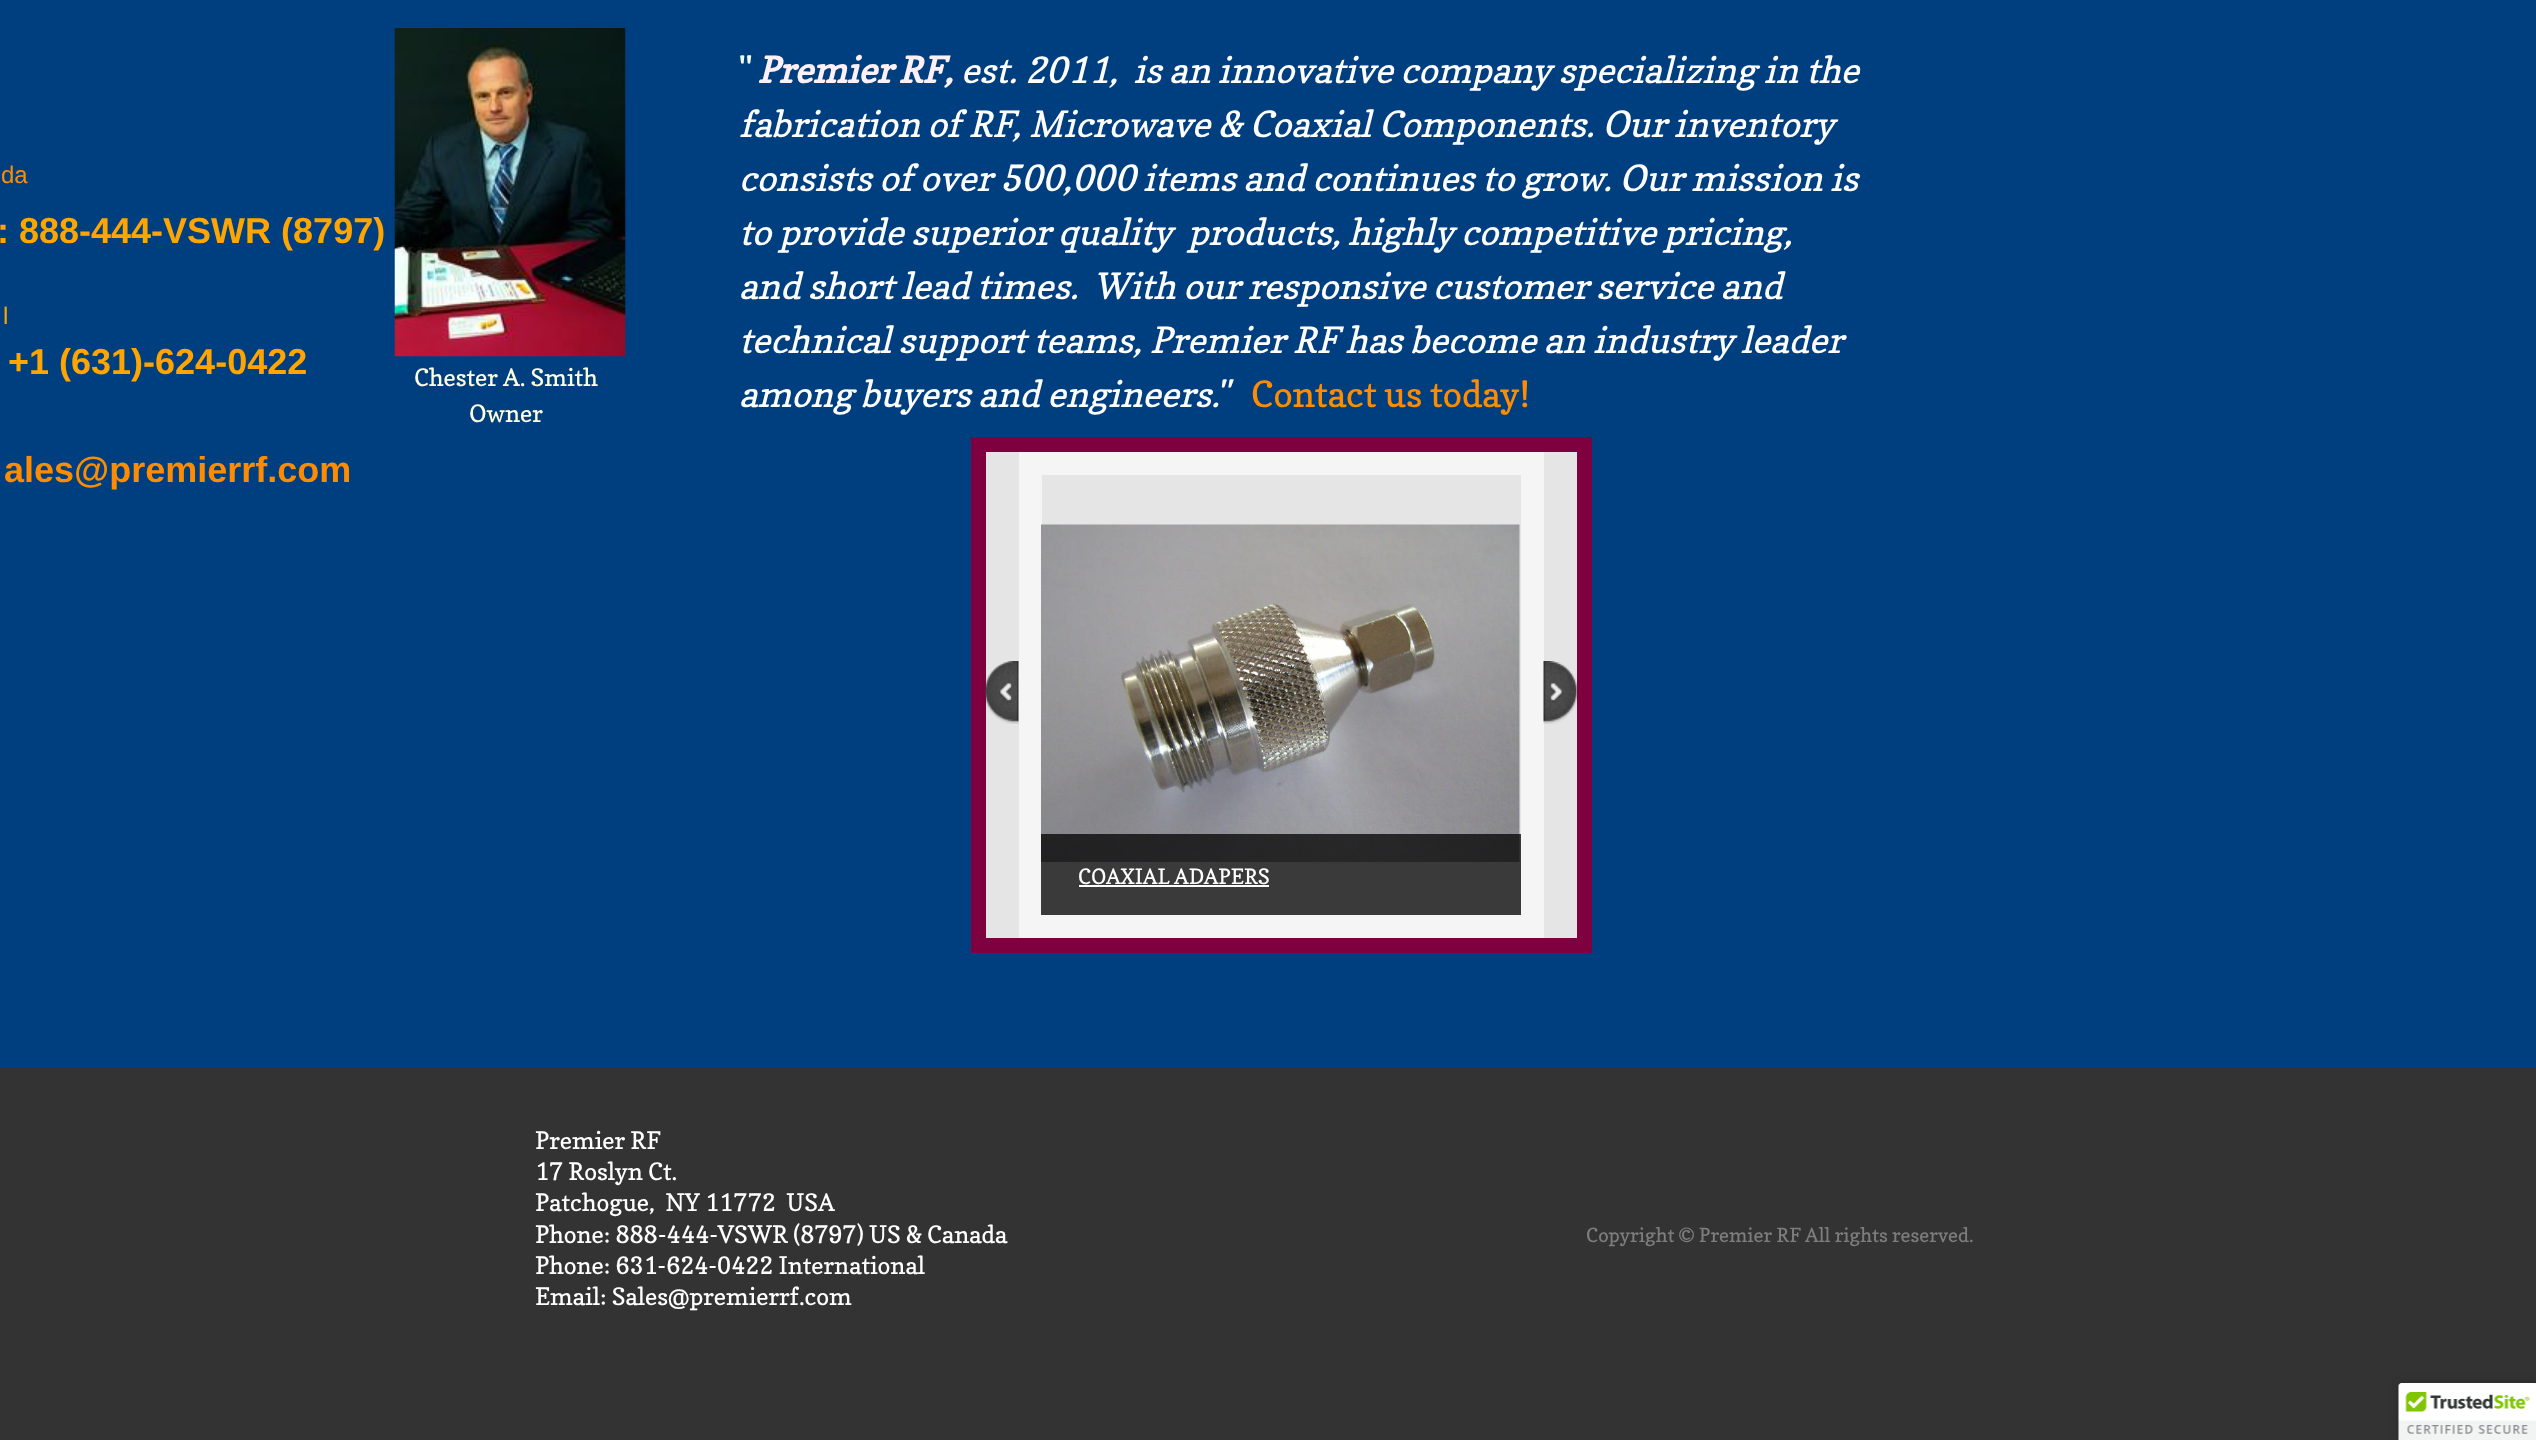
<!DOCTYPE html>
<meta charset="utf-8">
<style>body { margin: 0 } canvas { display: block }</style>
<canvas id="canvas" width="2536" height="1440"></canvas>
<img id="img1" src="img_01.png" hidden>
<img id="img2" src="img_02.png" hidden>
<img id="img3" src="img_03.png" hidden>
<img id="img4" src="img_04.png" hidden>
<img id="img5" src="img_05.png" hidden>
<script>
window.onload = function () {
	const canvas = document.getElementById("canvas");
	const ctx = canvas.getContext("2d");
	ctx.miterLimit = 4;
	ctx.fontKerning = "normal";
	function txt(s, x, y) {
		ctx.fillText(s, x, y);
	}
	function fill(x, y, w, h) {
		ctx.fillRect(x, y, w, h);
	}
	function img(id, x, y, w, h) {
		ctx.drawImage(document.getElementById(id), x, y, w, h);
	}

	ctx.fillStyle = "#003F7F";
	fill(0, 0, 2536, 1440);
	img("img1", 394, 28, 232, 329);
	ctx.fillStyle = "#E5E5E5";
	ctx.beginPath();
	ctx.rect(978.5, 444.5, 606, 501);
	ctx.fill();
	ctx.strokeStyle = "#7F003F";
	ctx.lineWidth = 15;
	ctx.stroke();
	img("img2", 985, 661, 34, 63);
	ctx.strokeStyle = "#F5F5F5";
	ctx.lineWidth = 23;
	ctx.strokeRect(1030.5, 463.5, 502, 463);
	img("img3", 1543, 661, 34, 63);
	img("img4", 1041, 524, 479, 338);
	ctx.fillStyle = "rgba(0, 0, 0, 0.75)";
	fill(1041, 834, 480, 81);
	ctx.fillStyle = "#FFFFFF";
	fill(1079, 885, 190, 2);
	ctx.fillStyle = "#333333";
	fill(0, 1067, 2536, 373);
	ctx.fillStyle = "rgba(0, 0, 0, 0.2)";
	ctx.filter = "blur(4px)";
	ctx.beginPath();
	ctx.roundRect(2399, 1383, 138, 57, 3);
	ctx.fill();
	ctx.filter = "none";
	ctx.fillStyle = "#FFFFFF";
	ctx.beginPath();
	ctx.moveTo(2402, 1383);
	ctx.lineTo(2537, 1383);
	ctx.lineTo(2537, 1440);
	ctx.lineTo(2399, 1440);
	ctx.lineTo(2399, 1386);
	ctx.bezierCurveTo(2399, 1384.5, 2400.5, 1383, 2402, 1383);
	ctx.closePath();
	ctx.fill();
	img("img5", 2398, 1383, 138, 57);
	ctx.font = "24px Liberation Sans";
	ctx.fillStyle = "#FF8C00";
	txt("da", 1, 183);
	ctx.font = "bold 36px Liberation Sans";
	ctx.fillStyle = "#FFA500";
	txt(": 888-444-VSWR (8797)", -3, 243);
	ctx.font = "24px Liberation Sans";
	txt("l", 3, 324);
	ctx.font = "bold 36px Liberation Sans";
	txt("+1 (631)-624-0422", 8, 374);
	ctx.fillStyle = "#FF8C00";
	txt("ales@premierrf.com", 4, 482);
	ctx.font = "36px Copse";
	ctx.fillStyle = "#F0FFF0";
	txt("\"", 739, 83);
	ctx.wordSpacing = "-2px";
	ctx.font = "italic bold 36px Copse";
	ctx.fillStyle = "#FFF0F5";
	txt("Premier RF", 757, 83);
	ctx.wordSpacing = "0px";
	ctx.font = "italic 36px Copse";
	ctx.fillStyle = "#FFFFFF";
	txt("est. 2011,  is an innovative company specializing in the", 961, 83);
	ctx.font = "italic bold 36px Copse";
	ctx.fillStyle = "#FFF0F5";
	txt(",", 944, 83);
	ctx.font = "italic 36px Copse";
	ctx.fillStyle = "#FFFFFF";
	txt("fabrication of RF, Microwave & Coaxial Components. Our inventory", 739, 137);
	txt("consists of over 500,000 items and continues to grow. Our mission is", 739, 191);
	txt("to provide superior quality  products, highly competitive pricing,", 739, 245);
	txt("and short lead times.", 739, 299);
	txt("With our responsive customer service and", 1093, 299);
	txt("technical support teams, Premier RF has become an industry leader", 739, 353);
	txt("among buyers and engineers.\"", 739, 407);
	ctx.font = "36px Copse";
	ctx.fillStyle = "#FF8C00";
	txt("Contact us today!", 1251, 407);
	ctx.font = "24px Copse";
	ctx.fillStyle = "#FFFFE0";
	txt("Chester A. Smith", 414, 386);
	txt("Owner", 469, 422);
	ctx.font = "21px Copse";
	ctx.fillStyle = "#FFFFFF";
	txt("COAXIAL ADAPERS", 1078, 884);
	ctx.font = "24px Copse";
	txt("Premier RF", 535, 1149);
	txt("17 Roslyn Ct.", 535, 1180);
	txt("Patchogue,  NY 11772  USA", 535, 1211);
	txt("Phone: 888-444-VSWR (8797) US & Canada", 535, 1243);
	txt("Phone: 631-624-0422 International", 535, 1274);
	txt("Email: Sales@premierrf.com", 535, 1305);
	ctx.font = "19.5px Copse";
	ctx.fillStyle = "#7D7D7D";
	txt("Copyright © Premier RF All rights reserved.", 1586, 1242);
};
</script>
